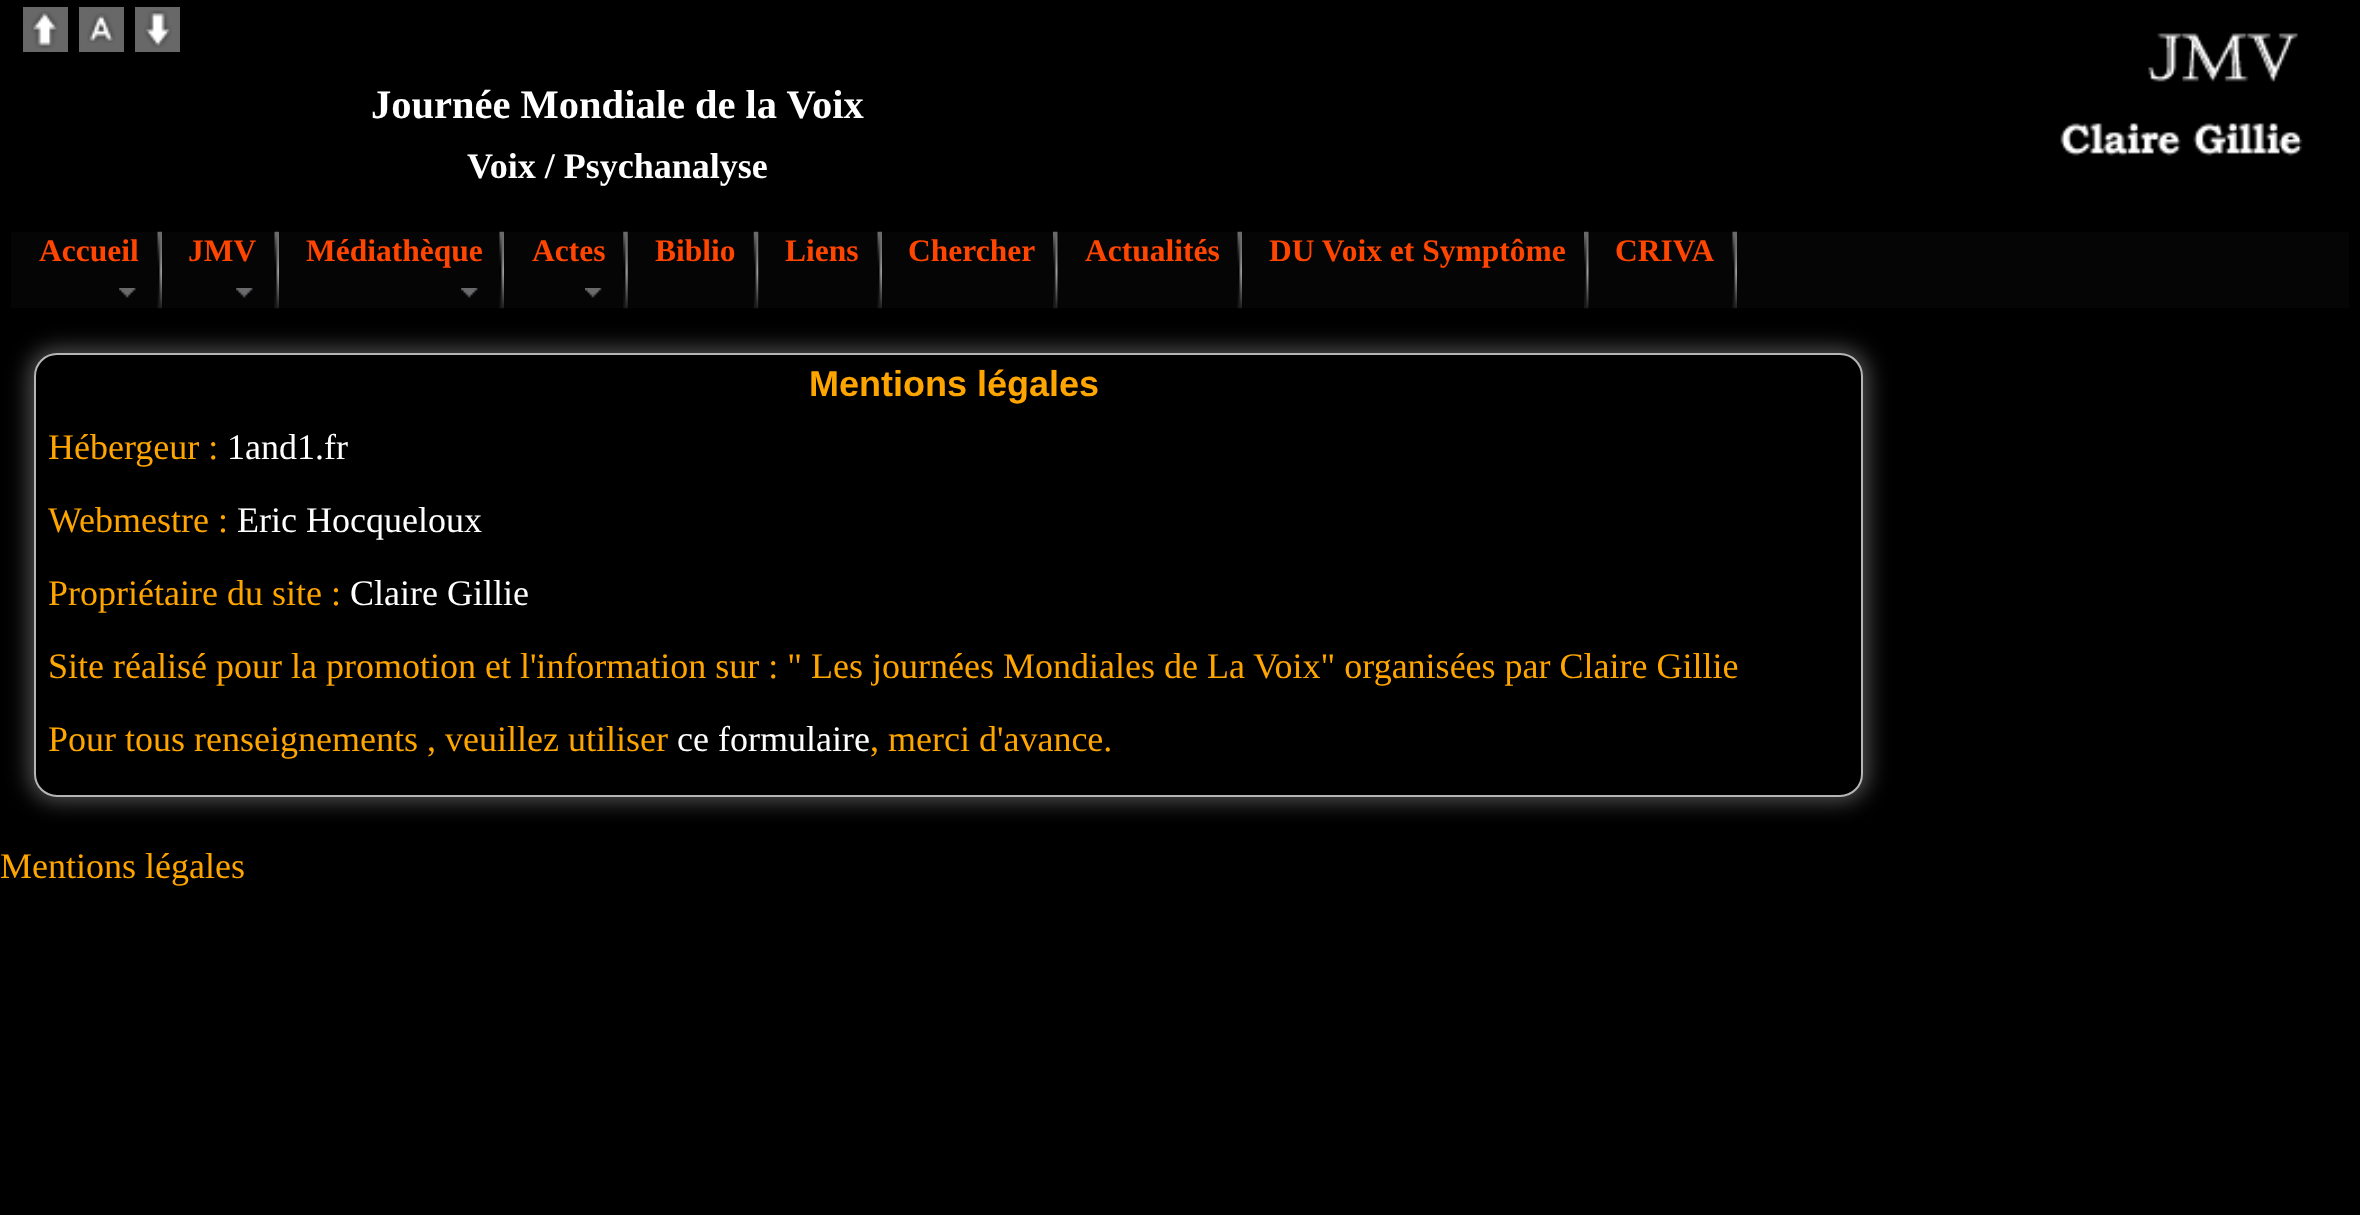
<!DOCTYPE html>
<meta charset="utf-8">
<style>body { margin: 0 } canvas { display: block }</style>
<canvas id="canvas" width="2360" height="1215"></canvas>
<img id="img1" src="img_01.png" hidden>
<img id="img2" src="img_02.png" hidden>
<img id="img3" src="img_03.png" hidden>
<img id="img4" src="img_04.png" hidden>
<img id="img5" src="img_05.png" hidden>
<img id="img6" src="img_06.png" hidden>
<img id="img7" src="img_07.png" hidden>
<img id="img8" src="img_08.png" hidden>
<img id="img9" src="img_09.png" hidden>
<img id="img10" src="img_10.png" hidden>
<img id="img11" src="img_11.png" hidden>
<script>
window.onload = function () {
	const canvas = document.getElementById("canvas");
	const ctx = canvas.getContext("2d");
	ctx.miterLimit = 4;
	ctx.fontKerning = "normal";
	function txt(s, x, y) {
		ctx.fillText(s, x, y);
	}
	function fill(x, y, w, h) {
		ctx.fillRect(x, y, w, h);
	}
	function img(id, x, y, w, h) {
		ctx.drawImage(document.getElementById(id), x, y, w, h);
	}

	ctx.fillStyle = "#000000";
	fill(0, 0, 2360, 1215);
	ctx.fillStyle = "#686868";
	fill(23, 7, 45, 45);
	img("img1", 31, 11, 27, 38);
	fill(79, 7, 45, 45);
	img("img2", 87, 13, 28, 30);
	fill(135, 7, 45, 45);
	img("img3", 144, 10, 28, 38);
	img("img4", 2060, 33, 243, 123);
	ctx.fillStyle = "#050505";
	fill(11, 232, 2338, 76);
	img("img5", 157, 231, 5, 78);
	img("img6", 119, 288, 17, 10);
	img("img5", 274, 231, 5, 78);
	img("img6", 236, 288, 17, 10);
	img("img5", 499, 231, 5, 78);
	img("img7", 461, 288, 17, 10);
	img("img8", 623, 231, 5, 78);
	img("img9", 585, 288, 17, 10);
	img("img10", 753, 231, 6, 78);
	img("img5", 877, 231, 5, 78);
	img("img11", 1053, 231, 5, 78);
	img("img5", 1237, 231, 5, 78);
	img("img11", 1584, 231, 5, 78);
	img("img5", 1732, 231, 5, 78);
	ctx.fillStyle = "#525252";
	ctx.filter = "blur(11px)";
	ctx.beginPath();
	ctx.roundRect(29, 349, 1839, 452, 27);
	ctx.fill();
	ctx.filter = "none";
	ctx.fillStyle = "#000000";
	ctx.beginPath();
	ctx.roundRect(35, 354, 1827, 442, 22);
	ctx.fill();
	ctx.strokeStyle = "#B5B5B5";
	ctx.lineWidth = 2;
	ctx.stroke();
	ctx.font = "bold 40.5px Liberation Serif";
	ctx.fillStyle = "#FFFFFF";
	txt("Journée Mondiale de la Voix", 371, 118);
	ctx.font = "bold 36px Liberation Serif";
	txt("Voix / Psychanalyse", 467, 178);
	ctx.font = "bold 31.5px Liberation Serif";
	ctx.fillStyle = "#FF4500";
	txt("Accueil", 39, 261);
	txt("JMV", 188, 261);
	txt("Médiathèque", 306, 261);
	txt("Actes", 532, 261);
	txt("Biblio", 655, 261);
	txt("Liens", 785, 261);
	txt("Chercher", 908, 261);
	txt("Actualités", 1085, 261);
	txt("DU Voix et Symptôme", 1269, 261);
	txt("CRIVA", 1615, 261);
	ctx.font = "bold 36px Liberation Sans";
	ctx.fillStyle = "#FFA500";
	txt("Mentions légales", 809, 396);
	ctx.font = "36px Liberation Serif";
	txt("Hébergeur :", 48, 459);
	ctx.fillStyle = "#FFFFFF";
	txt("1and1.fr", 227, 459);
	ctx.fillStyle = "#FFA500";
	txt("Webmestre :", 48, 532);
	ctx.fillStyle = "#FFFFFF";
	txt("Eric Hocqueloux", 237, 532);
	ctx.fillStyle = "#FFA500";
	txt("Propriétaire du site :", 48, 605);
	ctx.fillStyle = "#FFFFFF";
	txt("Claire Gillie", 350, 605);
	ctx.fillStyle = "#FFA500";
	txt("Site réalisé pour la promotion et l'information sur : \" Les journées Mondiales de La Voix\" organisées par Claire Gillie", 48, 678);
	txt("Pour tous renseignements , veuillez utiliser", 48, 751);
	ctx.fillStyle = "#FFFFFF";
	txt("ce formulaire", 677, 751);
	ctx.fillStyle = "#FFA500";
	txt(", merci d'avance.", 870, 751);
	txt("Mentions légales", 0, 878);
};
</script>
